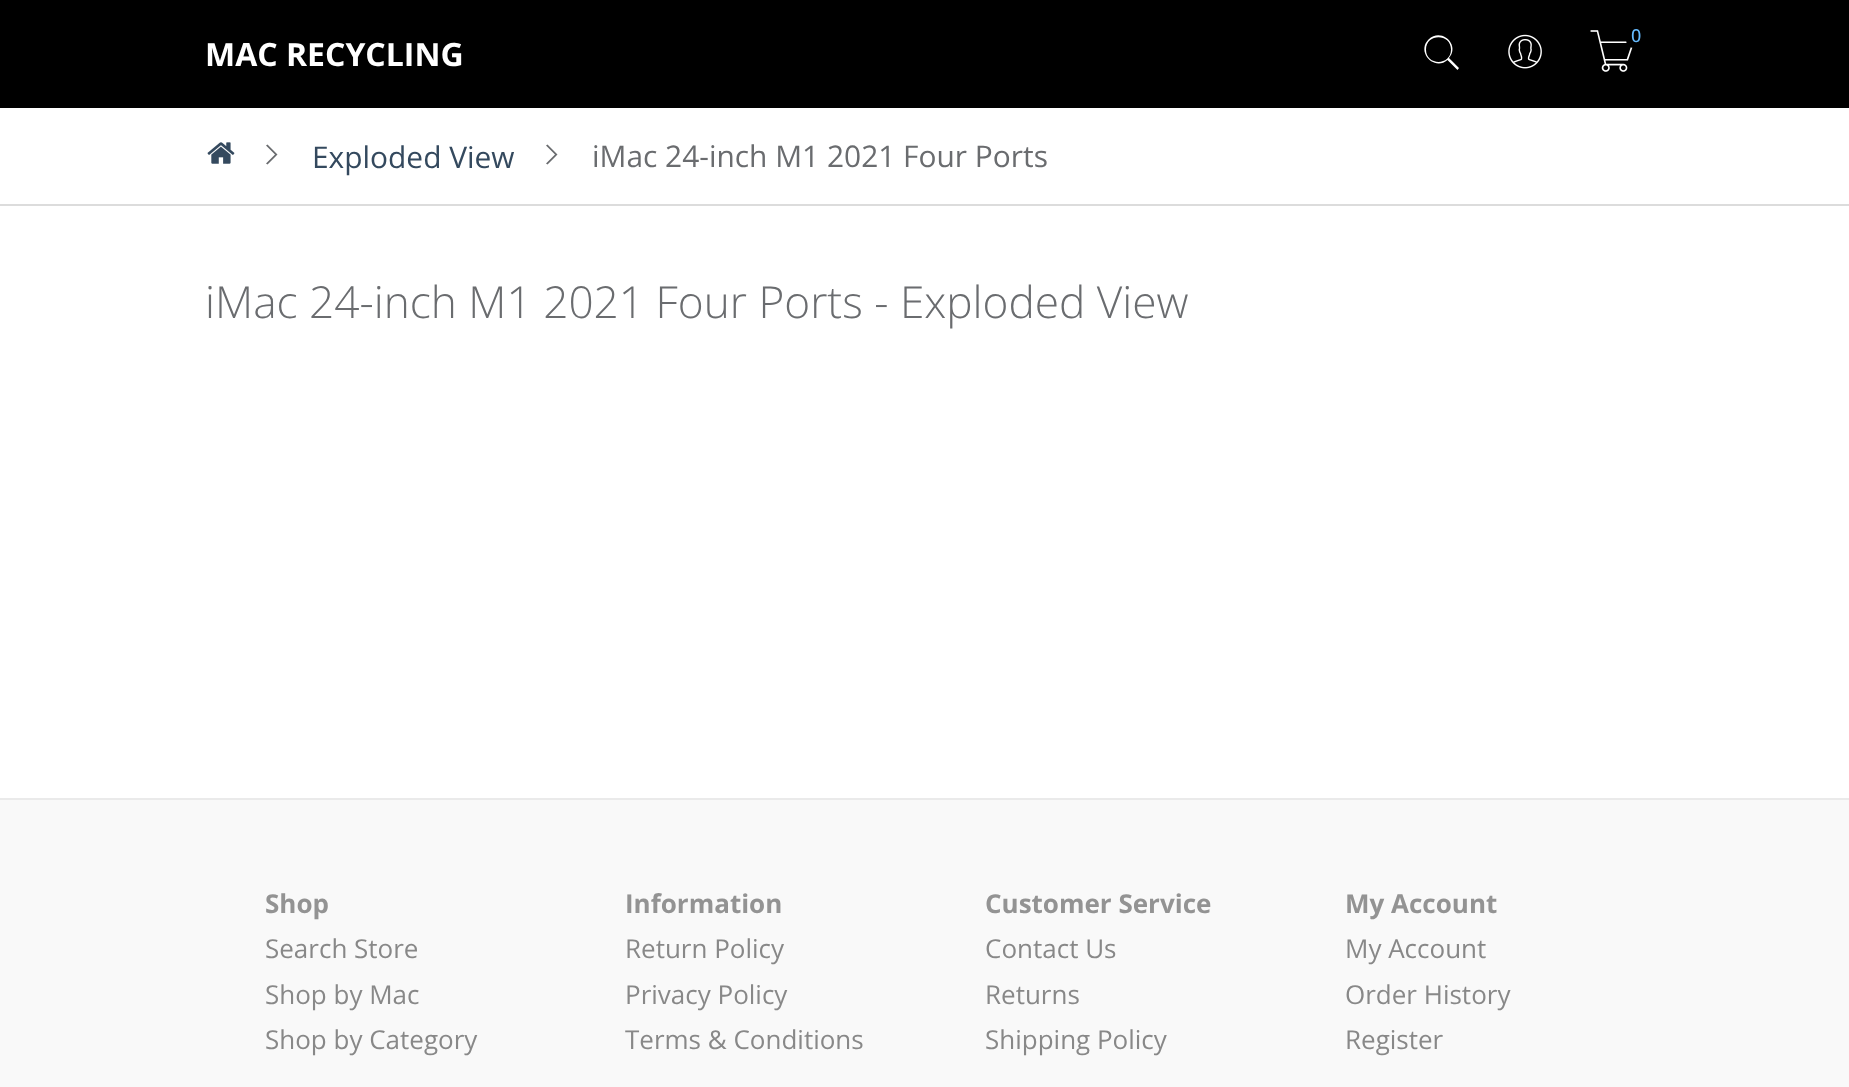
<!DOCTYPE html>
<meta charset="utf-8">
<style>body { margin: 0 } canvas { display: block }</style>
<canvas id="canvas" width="1849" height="1087"></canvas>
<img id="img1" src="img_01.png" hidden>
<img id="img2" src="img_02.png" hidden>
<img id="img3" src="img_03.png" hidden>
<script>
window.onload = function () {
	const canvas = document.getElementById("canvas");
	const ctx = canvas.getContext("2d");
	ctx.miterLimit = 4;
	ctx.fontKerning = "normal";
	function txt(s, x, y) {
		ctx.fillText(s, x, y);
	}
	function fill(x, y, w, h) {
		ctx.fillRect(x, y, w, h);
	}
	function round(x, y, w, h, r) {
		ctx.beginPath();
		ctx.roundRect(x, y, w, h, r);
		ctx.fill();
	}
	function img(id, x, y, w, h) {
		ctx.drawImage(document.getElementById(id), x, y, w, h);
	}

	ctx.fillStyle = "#FFFFFF";
	fill(0, 0, 1849, 1087);
	ctx.fillStyle = "#000000";
	fill(0, 0, 1849, 108);
	ctx.fillStyle = "#FFFFFF";
	ctx.beginPath();
	ctx.moveTo(1459, 68);
	ctx.lineTo(1449, 58);
	ctx.bezierCurveTo(1460.5, 45, 1441.5, 27, 1428.5, 39.5);
	ctx.bezierCurveTo(1416, 52, 1434.5, 71.5, 1447.5, 60);
	ctx.lineTo(1457.5, 70);
	ctx.closePath();
	ctx.moveTo(1426, 49.5);
	ctx.bezierCurveTo(1426, 33, 1451, 33, 1451, 49.5);
	ctx.bezierCurveTo(1451, 66, 1426, 66, 1426, 49.5);
	ctx.closePath();
	ctx.fill();
	img("img1", 1508, 34, 34, 35);
	img("img2", 1590, 30, 43, 42);
	ctx.fillStyle = "#000000";
	round(1626, 20, 20, 28, 8);
	ctx.fillStyle = "#DCDCDC";
	fill(0, 204, 1849, 2);
	img("img3", 207, 142, 28, 22);
	ctx.fillStyle = "#6A6C6F";
	ctx.beginPath();
	ctx.moveTo(276.5, 155.5);
	ctx.lineTo(277.5, 154.5);
	ctx.lineTo(267.5, 144.5);
	ctx.lineTo(266, 145.5);
	ctx.lineTo(275, 154.5);
	ctx.lineTo(266, 163.5);
	ctx.lineTo(267.5, 164.5);
	ctx.closePath();
	ctx.fill();
	ctx.beginPath();
	ctx.moveTo(556.5, 155.5);
	ctx.lineTo(557.5, 154.5);
	ctx.lineTo(547.5, 144.5);
	ctx.lineTo(546, 145.5);
	ctx.lineTo(555, 154.5);
	ctx.lineTo(546, 163.5);
	ctx.lineTo(547.5, 164.5);
	ctx.closePath();
	ctx.fill();
	ctx.fillStyle = "#F9F9F9";
	fill(0, 800, 1849, 287);
	ctx.fillStyle = "#EAEAEA";
	fill(0, 798, 1849, 2);
	ctx.font = "bold 32px Open Sans";
	ctx.fillStyle = "#FFFFFF";
	txt("MAC RECYCLING", 205, 66);
	ctx.font = "500 18px Open Sans";
	ctx.fillStyle = "#66BBFF";
	txt("0", 1631, 42);
	ctx.font = "29.9px Open Sans";
	ctx.fillStyle = "#34495E";
	txt("Exploded View", 312, 168);
	ctx.fillStyle = "#6A6C6F";
	txt("iMac 24-inch M1 2021 Four Ports", 592, 167);
	ctx.font = "300 44.2px Open Sans";
	txt("iMac 24-inch M1 2021 Four Ports - Exploded View", 205, 318);
	ctx.font = "bold 26px Open Sans";
	ctx.fillStyle = "#939393";
	txt("Shop", 265, 913);
	ctx.font = "26px Open Sans";
	ctx.fillStyle = "#888888";
	txt("Search Store", 265, 958);
	txt("Shop by Mac", 265, 1004);
	txt("Shop by Category", 265, 1049);
	ctx.font = "bold 26px Open Sans";
	ctx.fillStyle = "#939393";
	txt("Information", 625, 913);
	ctx.font = "26px Open Sans";
	ctx.fillStyle = "#888888";
	txt("Return Policy", 625, 958);
	txt("Privacy Policy", 625, 1004);
	txt("Terms & Conditions", 625, 1049);
	ctx.font = "bold 26px Open Sans";
	ctx.fillStyle = "#939393";
	txt("Customer Service", 985, 913);
	ctx.font = "26px Open Sans";
	ctx.fillStyle = "#888888";
	txt("Contact Us", 985, 958);
	txt("Returns", 985, 1004);
	txt("Shipping Policy", 985, 1049);
	ctx.font = "bold 26px Open Sans";
	ctx.fillStyle = "#939393";
	txt("My Account", 1345, 913);
	ctx.font = "26px Open Sans";
	ctx.fillStyle = "#888888";
	txt("My Account", 1345, 958);
	txt("Order History", 1345, 1004);
	txt("Register", 1345, 1049);
};
</script>
